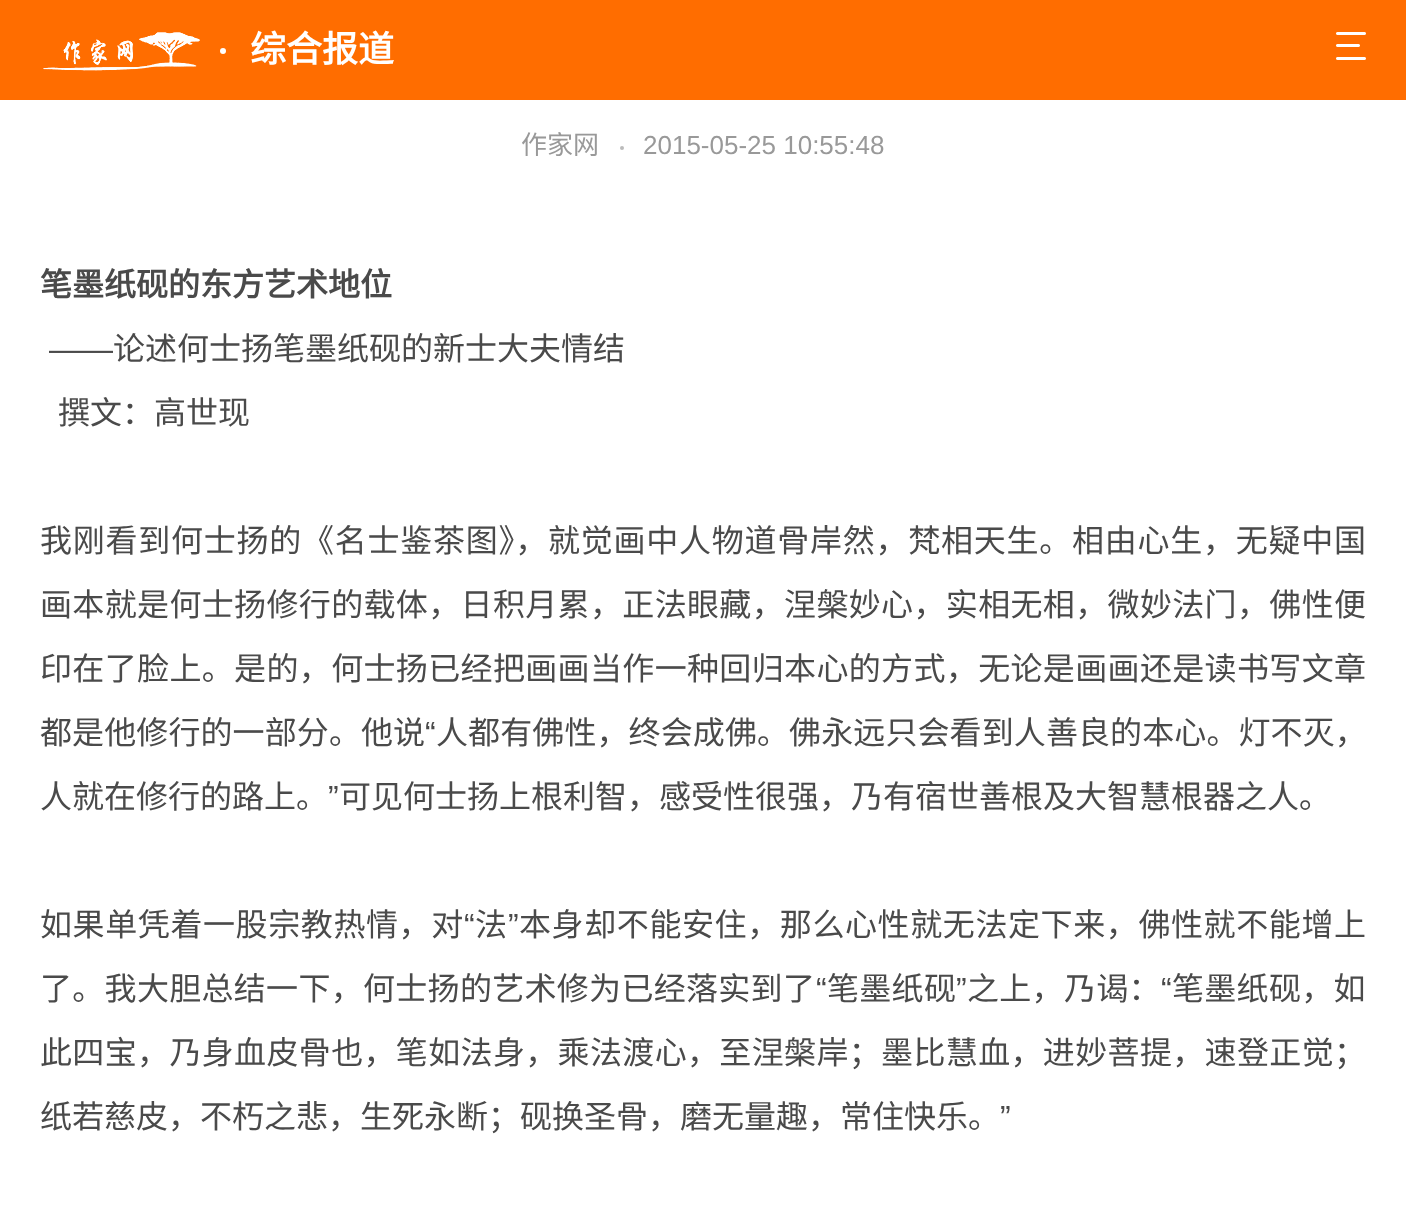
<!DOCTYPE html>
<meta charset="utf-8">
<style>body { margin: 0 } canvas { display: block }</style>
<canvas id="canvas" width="1406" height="1220"></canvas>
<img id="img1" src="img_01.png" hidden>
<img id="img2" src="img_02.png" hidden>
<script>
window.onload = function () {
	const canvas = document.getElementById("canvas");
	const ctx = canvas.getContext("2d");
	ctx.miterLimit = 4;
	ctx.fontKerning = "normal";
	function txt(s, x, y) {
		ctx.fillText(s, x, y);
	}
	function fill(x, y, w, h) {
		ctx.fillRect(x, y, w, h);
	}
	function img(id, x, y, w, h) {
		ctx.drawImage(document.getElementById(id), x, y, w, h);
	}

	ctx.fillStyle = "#FFFFFF";
	fill(0, 0, 1406, 1220);
	ctx.fillStyle = "#FF6D00";
	fill(0, 0, 1406, 100);
	img("img1", 43, 32, 157, 39);
	ctx.fillStyle = "#FFFFFF";
	ctx.beginPath();
	ctx.arc(223, 51, 3, 0, Math.PI * 2);
	ctx.fill();
	img("img2", 1336, 32, 30, 28);
	ctx.fillStyle = "#BBBBBB";
	ctx.beginPath();
	ctx.arc(622, 148, 2, 0, Math.PI * 2);
	ctx.fill();
	ctx.font = "bold 36px Noto Sans CJK SC";
	ctx.fillStyle = "#FFFFFF";
	txt("综合报道", 250, 62);
	ctx.font = "26px Noto Sans CJK SC";
	ctx.fillStyle = "#999999";
	txt("作家网", 521, 154);
	ctx.font = "26px Liberation Sans";
	txt("2015-05-25 10:55:48", 643, 154);
	ctx.font = "bold 32px Noto Sans CJK SC";
	ctx.fillStyle = "#4A4A4A";
	txt("笔墨纸砚的东方艺术地位", 40, 296);
	ctx.font = "32px Liberation Sans";
	txt("——", 49, 360);
	ctx.font = "32px Noto Sans CJK SC";
	txt("论述何士扬笔墨纸砚的新士大夫情结", 113, 360);
	txt("撰文：高世现", 58, 424);
	ctx.letterSpacing = "0.75px";
	txt("我刚看到何士扬的《名士鉴茶图》，就觉画中人物道骨岸然，梵相天生。相由心生，无疑中国", 40, 552);
	ctx.letterSpacing = "0.35px";
	txt("画本就是何士扬修行的载体，日积月累，正法眼藏，涅槃妙心，实相无相，微妙法门，佛性便", 40, 616);
	txt("印在了脸上。是的，何士扬已经把画画当作一种回归本心的方式，无论是画画还是读书写文章", 40, 680);
	ctx.letterSpacing = "0.1px";
	txt("都是他修行的一部分。他说", 40, 744);
	ctx.font = "32px Liberation Sans";
	txt("“", 425, 744);
	ctx.font = "32px Noto Sans CJK SC";
	txt("人都有佛性，终会成佛。佛永远只会看到人善良的本心。灯不灭，", 436, 744);
	ctx.letterSpacing = "0px";
	txt("人就在修行的路上。", 40, 808);
	ctx.font = "32px Liberation Sans";
	txt("”", 328, 808);
	ctx.font = "32px Noto Sans CJK SC";
	txt("可见何士扬上根利智，感受性很强，乃有宿世善根及大智慧根器之人。", 339, 808);
	ctx.letterSpacing = "0.6px";
	txt("如果单凭着一股宗教热情，对", 40, 936);
	ctx.font = "32px Liberation Sans";
	txt("“", 464, 936);
	ctx.font = "32px Noto Sans CJK SC";
	txt("法", 475, 936);
	ctx.font = "32px Liberation Sans";
	txt("”", 508, 936);
	ctx.font = "32px Noto Sans CJK SC";
	txt("本身却不能安住，那么心性就无法定下来，佛性就不能增上", 519, 936);
	ctx.letterSpacing = "0.3px";
	txt("了。我大胆总结一下，何士扬的艺术修为已经落实到了", 40, 1000);
	ctx.font = "32px Liberation Sans";
	txt("“", 816, 1000);
	ctx.font = "32px Noto Sans CJK SC";
	txt("笔墨纸砚", 827, 1000);
	ctx.font = "32px Liberation Sans";
	txt("”", 956, 1000);
	ctx.font = "32px Noto Sans CJK SC";
	txt("之上，乃谒：", 967, 1000);
	ctx.font = "32px Liberation Sans";
	txt("“", 1161, 1000);
	ctx.font = "32px Noto Sans CJK SC";
	txt("笔墨纸砚，如", 1172, 1000);
	ctx.letterSpacing = "0.35px";
	txt("此四宝，乃身血皮骨也，笔如法身，乘法渡心，至涅槃岸；墨比慧血，进妙菩提，速登正觉；", 40, 1064);
	ctx.letterSpacing = "0px";
	txt("纸若慈皮，不朽之悲，生死永断；砚换圣骨，磨无量趣，常住快乐。", 40, 1128);
	ctx.font = "32px Liberation Sans";
	txt("”", 1000, 1128);
};
</script>
